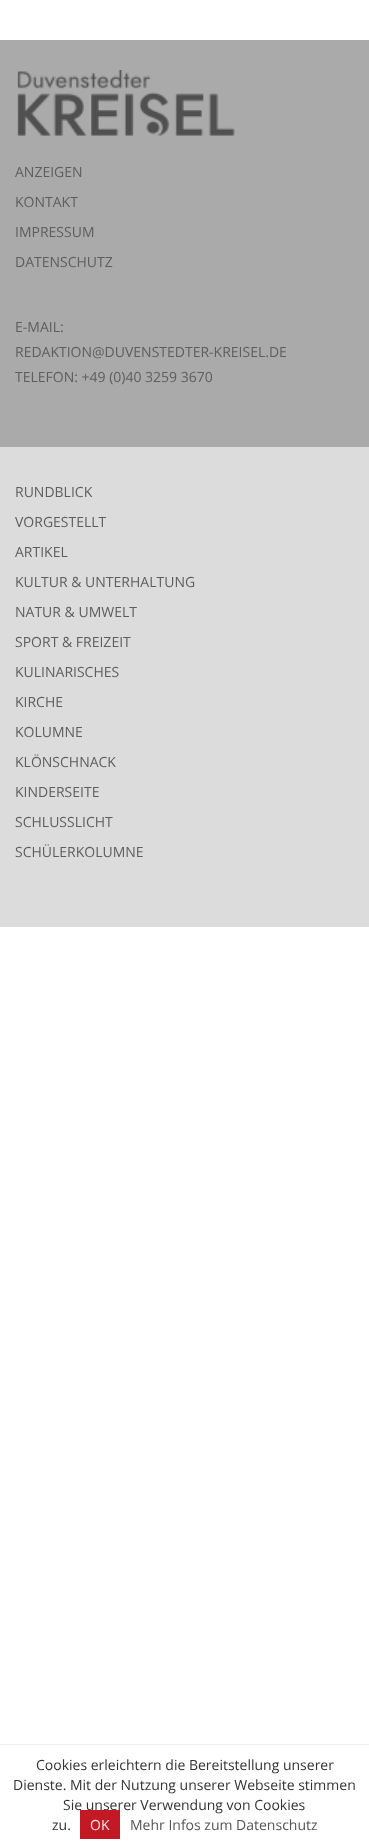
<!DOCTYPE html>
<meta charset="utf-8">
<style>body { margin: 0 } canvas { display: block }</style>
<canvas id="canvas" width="369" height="1845"></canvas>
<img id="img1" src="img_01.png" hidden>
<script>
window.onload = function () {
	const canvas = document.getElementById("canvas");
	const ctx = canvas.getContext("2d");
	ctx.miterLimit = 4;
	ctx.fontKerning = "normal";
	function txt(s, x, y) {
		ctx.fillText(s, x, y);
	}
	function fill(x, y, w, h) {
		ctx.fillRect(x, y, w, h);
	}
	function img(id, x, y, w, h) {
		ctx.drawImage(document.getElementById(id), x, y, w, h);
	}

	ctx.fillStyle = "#FFFFFF";
	fill(0, 0, 369, 1845);
	ctx.fillStyle = "#AAAAAA";
	fill(0, 40, 369, 407);
	img("img1", 17, 70, 218, 67);
	ctx.fillStyle = "#DCDCDC";
	fill(0, 447, 369, 480);
	ctx.fillStyle = "#EEEEEE";
	fill(0, 1744, 369, 1);
	ctx.font = "14px Open Sans";
	ctx.fillStyle = "#5E5E5E";
	txt("ANZEIGEN", 15, 177);
	txt("KONTAKT", 15, 207);
	txt("IMPRESSUM", 15, 237);
	txt("DATENSCHUTZ", 15, 267);
	txt("E-MAIL:", 15, 332);
	txt("REDAKTION@DUVENSTEDTER-KREISEL.DE", 15, 357);
	txt("TELEFON: +49 (0)40 3259 3670", 15, 382);
	txt("RUNDBLICK", 15, 497);
	txt("VORGESTELLT", 15, 527);
	txt("ARTIKEL", 15, 557);
	txt("KULTUR & UNTERHALTUNG", 15, 587);
	txt("NATUR & UMWELT", 15, 617);
	txt("SPORT & FREIZEIT", 15, 647);
	txt("KULINARISCHES", 15, 677);
	txt("KIRCHE", 15, 707);
	txt("KOLUMNE", 15, 737);
	txt("KLÖNSCHNACK", 15, 767);
	txt("KINDERSEITE", 15, 797);
	txt("SCHLUSSLICHT", 15, 827);
	txt("SCHÜLERKOLUMNE", 15, 857);
	ctx.fillStyle = "#333333";
	txt("Cookies erleichtern die Bereitstellung unserer", 36, 1770);
	txt("Dienste. Mit der Nutzung unserer Webseite stimmen", 13, 1790);
	txt("Sie unserer Verwendung von Cookies", 63, 1810);
	txt("zu.", 52, 1830);
	ctx.fillStyle = "#C31924";
	fill(80, 1810, 40, 29);
	ctx.fillStyle = "#EBEBEB";
	txt("OK", 90, 1830);
	ctx.fillStyle = "#555555";
	txt("Mehr Infos zum Datenschutz", 130, 1830);
};
</script>
